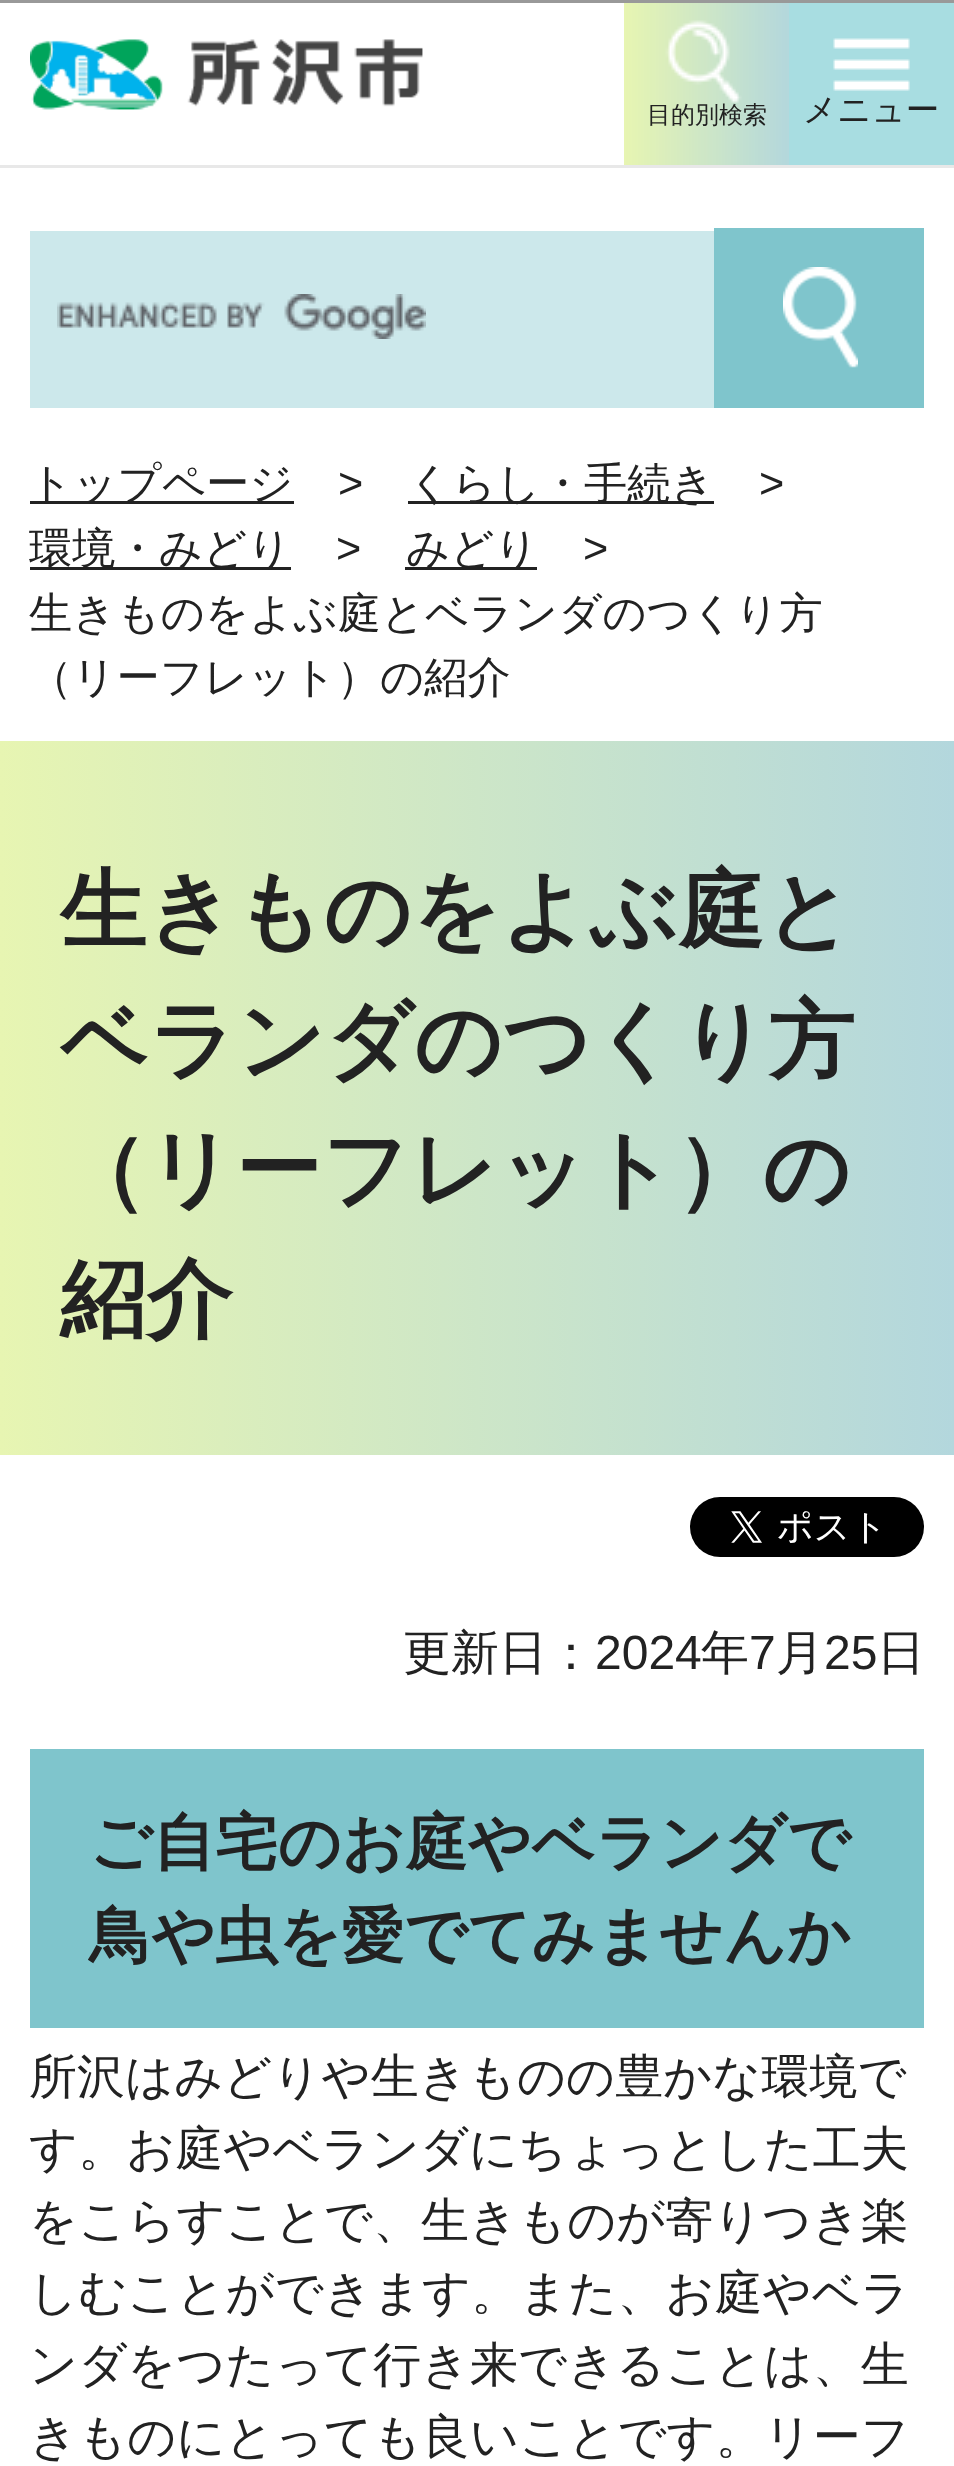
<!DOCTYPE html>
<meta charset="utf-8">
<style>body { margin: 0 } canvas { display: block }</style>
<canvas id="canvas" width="954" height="2466"></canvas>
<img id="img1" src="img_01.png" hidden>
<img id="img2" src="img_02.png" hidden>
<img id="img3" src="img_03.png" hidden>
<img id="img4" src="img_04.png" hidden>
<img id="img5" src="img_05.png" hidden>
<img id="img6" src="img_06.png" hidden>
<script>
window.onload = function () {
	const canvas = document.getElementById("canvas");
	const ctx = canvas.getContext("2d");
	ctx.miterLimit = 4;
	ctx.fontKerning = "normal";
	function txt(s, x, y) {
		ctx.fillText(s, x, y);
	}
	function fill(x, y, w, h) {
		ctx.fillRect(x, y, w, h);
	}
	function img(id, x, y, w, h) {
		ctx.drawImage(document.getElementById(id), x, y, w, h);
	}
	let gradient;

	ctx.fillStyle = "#FFFFFF";
	fill(0, 0, 954, 2466);
	ctx.fillStyle = "#999999";
	fill(0, 0, 954, 3);
	img("img1", 30, 39, 393, 71);
	img("img2", 624, 3, 165, 162);
	img("img3", 789, 3, 165, 162);
	ctx.fillStyle = "#E8E8E8";
	fill(0, 165, 954, 3);
	ctx.fillStyle = "#CCE8EB";
	fill(30, 231, 684, 177);
	img("img4", 57, 294, 369, 45);
	ctx.fillStyle = "#7FC5CC";
	fill(714, 228, 210, 180);
	img("img5", 783, 267, 75, 101);
	ctx.fillStyle = "#222222";
	fill(30, 501, 264, 3);
	fill(408, 501, 306, 3);
	fill(30, 567, 261, 3);
	fill(405, 567, 132, 3);
	gradient = ctx.createLinearGradient(0, 1098, 954, 1098);
	gradient.addColorStop(0, "#E7F5B2");
	gradient.addColorStop(1, "#B3D7DD");
	ctx.fillStyle = gradient;
	fill(0, 741, 954, 714);
	img("img6", 690, 1497, 234, 60);
	ctx.fillStyle = "#7FC5CC";
	fill(30, 1749, 894, 279);
	ctx.font = "500 24px WenQuanYi Zen Hei";
	ctx.fillStyle = "#222222";
	txt("目的別検索", 647, 123);
	ctx.font = "500 33.5px WenQuanYi Zen Hei";
	txt("メニュー", 803, 121);
	ctx.font = "500 43.25px WenQuanYi Zen Hei";
	txt("トップページ", 29, 498);
	ctx.font = "43.25px Liberation Sans";
	txt(">", 338, 498);
	ctx.font = "500 43.25px WenQuanYi Zen Hei";
	txt("くらし・手続き", 408, 498);
	ctx.font = "43.25px Liberation Sans";
	txt(">", 759, 498);
	ctx.font = "500 43.25px WenQuanYi Zen Hei";
	txt("環境・みどり", 29, 563);
	ctx.font = "43.25px Liberation Sans";
	txt(">", 336, 563);
	ctx.font = "500 43.25px WenQuanYi Zen Hei";
	txt("みどり", 406, 563);
	ctx.font = "43.25px Liberation Sans";
	txt(">", 583, 563);
	ctx.font = "500 43.25px WenQuanYi Zen Hei";
	txt("生きものをよぶ庭とベランダのつくり方", 29, 628);
	txt("（リーフレット）の紹介", 29, 692);
	ctx.font = "bold 86.5px WenQuanYi Zen Hei";
	txt("生きものをよぶ庭と", 60, 940);
	txt("ベランダのつくり方", 60, 1070);
	txt("（リーフレット）の", 60, 1199);
	txt("紹介", 60, 1329);
	ctx.font = "500 48px WenQuanYi Zen Hei";
	txt("更新日：", 403, 1669);
	ctx.font = "48px Liberation Sans";
	txt("2024", 595, 1669);
	ctx.font = "500 48px WenQuanYi Zen Hei";
	txt("年", 701, 1669);
	ctx.font = "48px Liberation Sans";
	txt("7", 749, 1669);
	ctx.font = "500 48px WenQuanYi Zen Hei";
	txt("月", 776, 1669);
	ctx.font = "48px Liberation Sans";
	txt("25", 824, 1669);
	ctx.font = "500 48px WenQuanYi Zen Hei";
	txt("日", 877, 1669);
	ctx.font = "bold 62.4px WenQuanYi Zen Hei";
	txt("ご自宅のお庭やベランダで", 89, 1864);
	txt("鳥や虫を愛でてみませんか", 89, 1957);
	ctx.font = "500 48px WenQuanYi Zen Hei";
	txt("所沢はみどりや生きものの豊かな環境で", 29, 2093);
	txt("す。お庭やベランダにちょっとした工夫", 29, 2165);
	txt("をこらすことで、生きものが寄りつき楽", 29, 2237);
	txt("しむことができます。また、お庭やベラ", 29, 2309);
	txt("ンダをつたって行き来できることは、生", 29, 2381);
	txt("きものにとっても良いことです。リーフ", 29, 2453);
};
</script>
